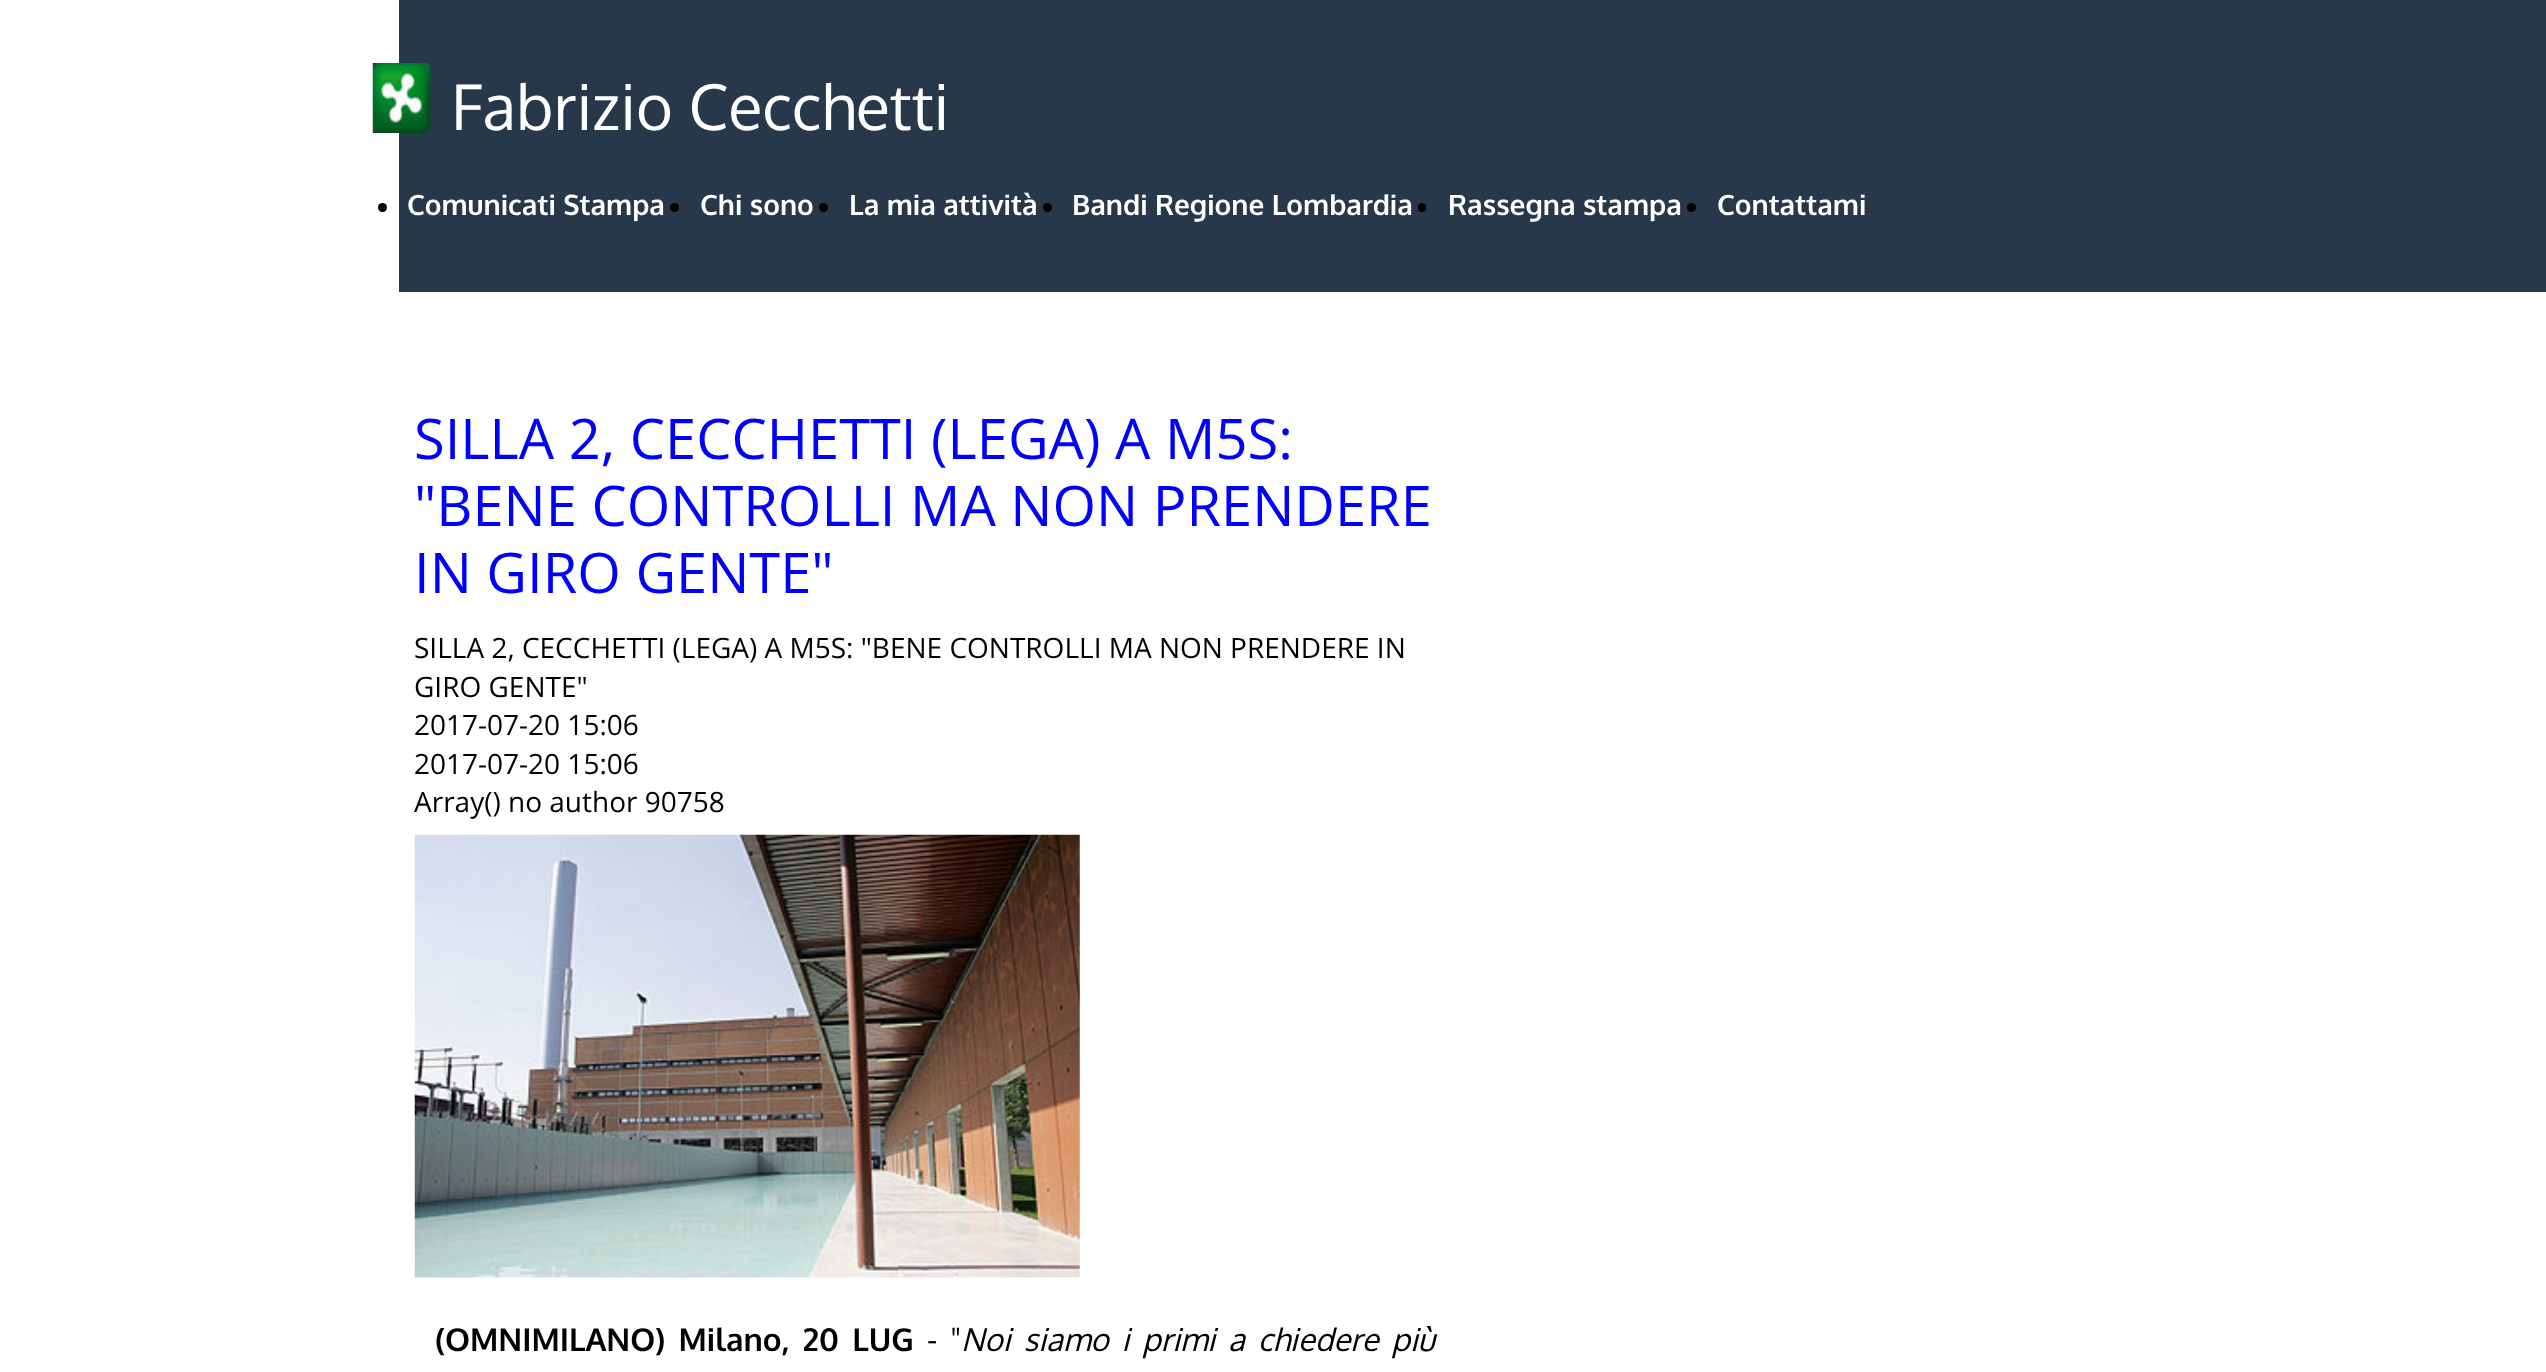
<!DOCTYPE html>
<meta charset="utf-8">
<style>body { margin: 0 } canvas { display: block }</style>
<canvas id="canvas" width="2546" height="1372"></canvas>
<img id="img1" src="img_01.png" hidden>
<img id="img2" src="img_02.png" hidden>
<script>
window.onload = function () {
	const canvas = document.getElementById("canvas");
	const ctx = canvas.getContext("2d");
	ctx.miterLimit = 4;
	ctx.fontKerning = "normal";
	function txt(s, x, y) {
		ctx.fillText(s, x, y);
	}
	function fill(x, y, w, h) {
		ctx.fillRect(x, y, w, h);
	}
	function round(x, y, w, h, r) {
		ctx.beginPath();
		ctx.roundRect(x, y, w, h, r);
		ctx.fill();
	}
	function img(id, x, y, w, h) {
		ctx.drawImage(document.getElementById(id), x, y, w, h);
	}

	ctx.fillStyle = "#FFFFFF";
	fill(0, 0, 2546, 1372);
	ctx.fillStyle = "#28384B";
	fill(399, 0, 2147, 292);
	img("img1", 372, 63, 59, 70);
	ctx.fillStyle = "#000000";
	ctx.beginPath();
	ctx.arc(382.5, 207.5, 4.5, 0, Math.PI * 2);
	ctx.fill();
	ctx.beginPath();
	ctx.arc(674.5, 207.5, 4.5, 0, Math.PI * 2);
	ctx.fill();
	ctx.beginPath();
	ctx.arc(823.5, 207.5, 4.5, 0, Math.PI * 2);
	ctx.fill();
	ctx.beginPath();
	ctx.arc(1047.5, 207.5, 4.5, 0, Math.PI * 2);
	ctx.fill();
	round(1418, 203, 8, 9, 4);
	ctx.beginPath();
	ctx.arc(1691.5, 207.5, 4.5, 0, Math.PI * 2);
	ctx.fill();
	img("img2", 414, 834, 666, 444);
	ctx.font = "63px 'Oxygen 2'";
	ctx.fillStyle = "#FFFFFF";
	txt("Fabrizio Cecchetti", 451, 130);
	ctx.font = "bold 28px Oxygen";
	txt("Comunicati Stampa", 407, 215);
	txt("Chi sono", 700, 215);
	txt("La mia attività", 849, 215);
	txt("Bandi Regione Lombardia", 1072, 215);
	txt("Rassegna stampa", 1448, 215);
	txt("Contattami", 1717, 215);
	ctx.font = "56px Open Sans";
	ctx.fillStyle = "#0000FF";
	txt("SILLA 2, CECCHETTI (LEGA) A M5S:", 414, 459);
	txt("\"BENE CONTROLLI MA NON PRENDERE", 414, 526);
	txt("IN GIRO GENTE\"", 414, 593);
	ctx.font = "28px Open Sans";
	ctx.fillStyle = "#000000";
	txt("SILLA 2, CECCHETTI (LEGA) A M5S: \"BENE CONTROLLI MA NON PRENDERE IN", 414, 658);
	txt("GIRO GENTE\"", 414, 697);
	txt("2017-07-20 15:06", 414, 735);
	txt("2017-07-20 15:06", 414, 774);
	txt("Array() no author 90758", 414, 812);
	ctx.wordSpacing = "5px";
	ctx.font = "bold 31.5px 'Oxygen 2'";
	txt("(OMNIMILANO) Milano, 20 LUG", 435, 1351);
	ctx.font = "31.5px Oxygen";
	txt("- \"", 927, 1351);
	ctx.font = "italic 31.5px Oxygen";
	txt("Noi siamo i primi a chiedere più", 961, 1351);
};
</script>
